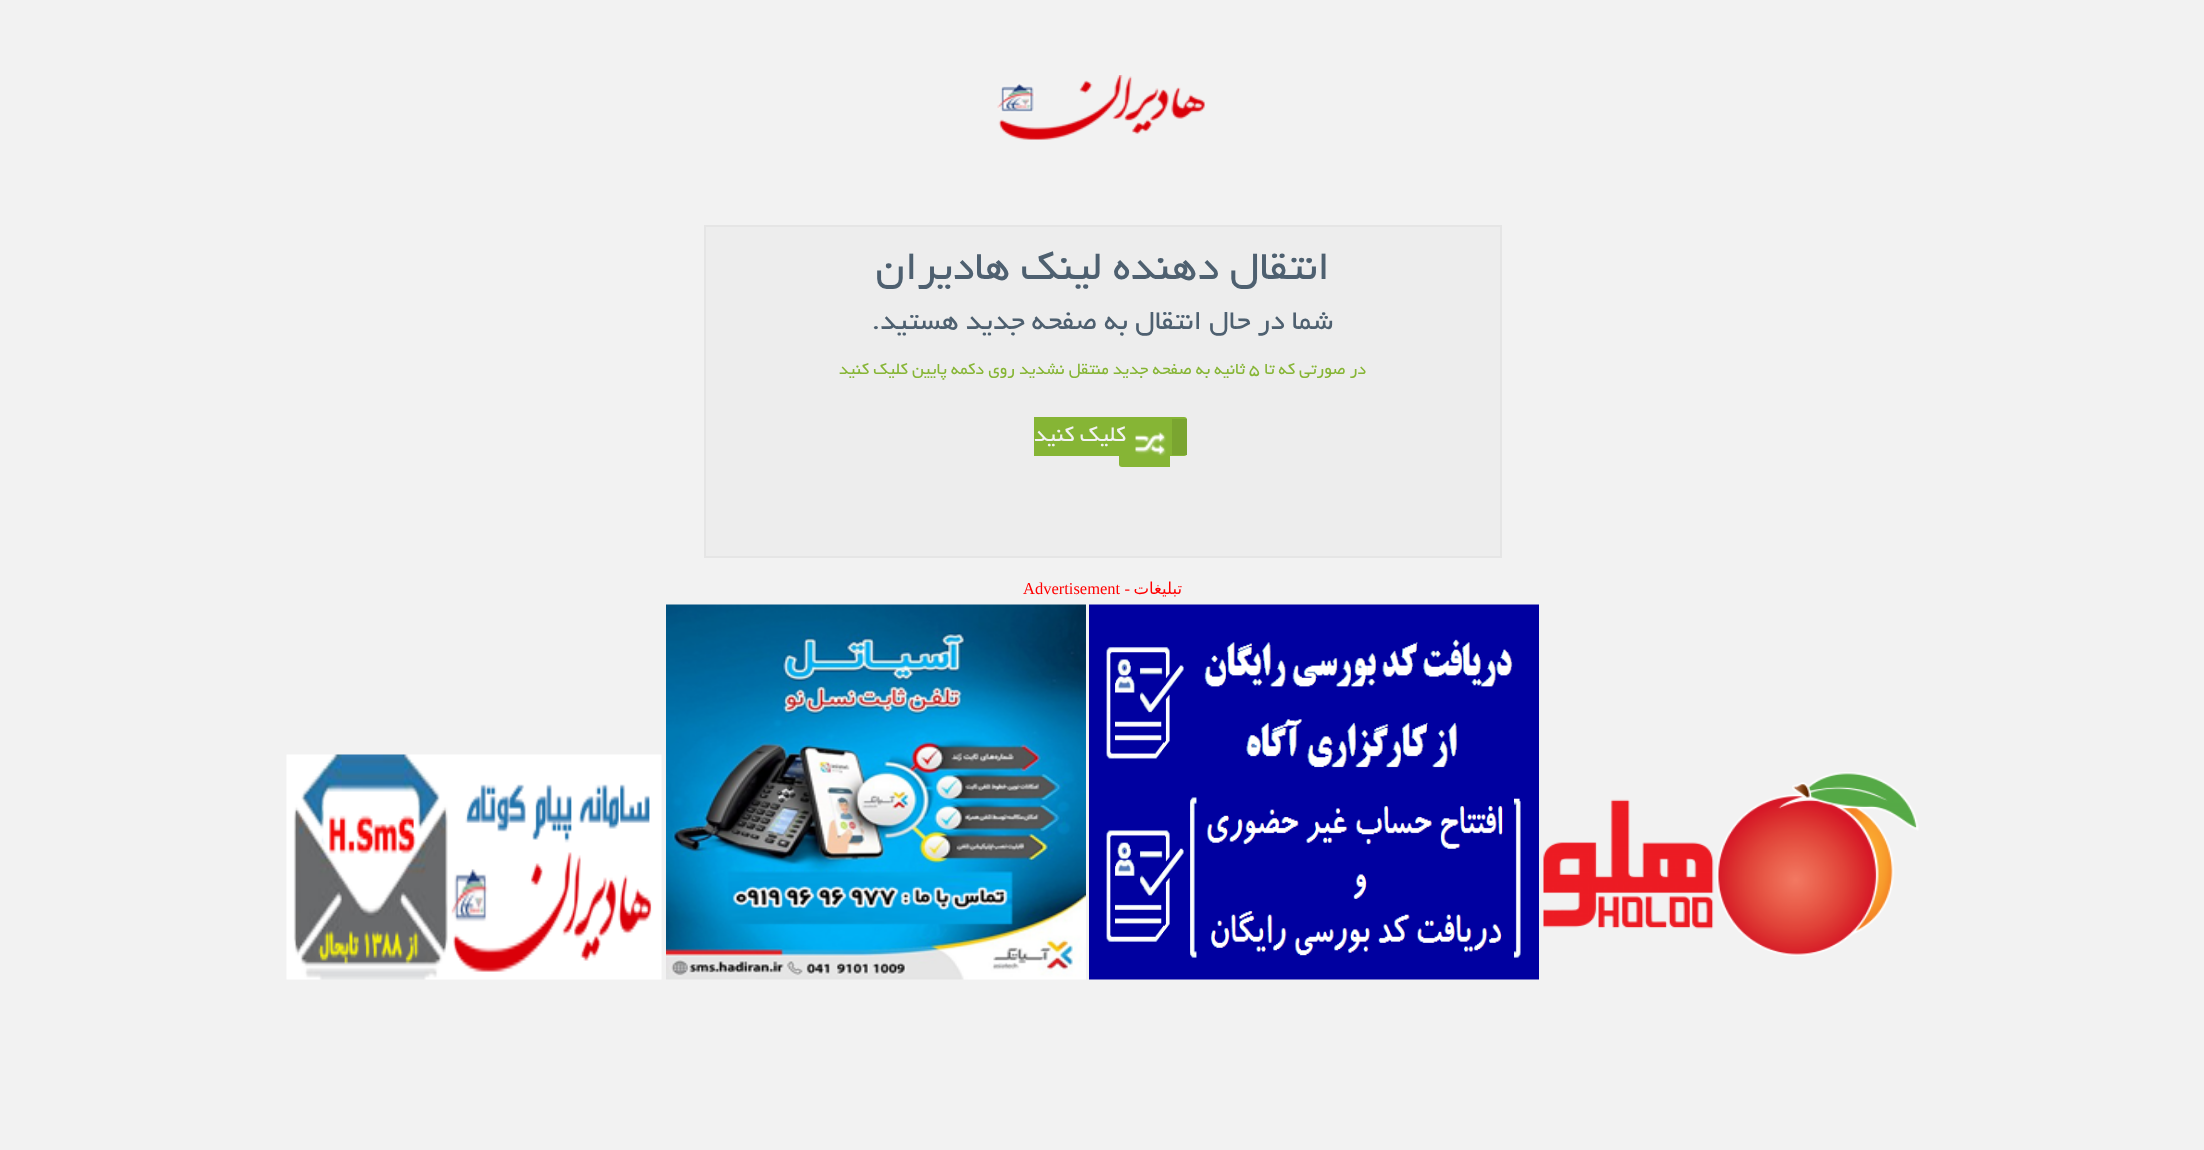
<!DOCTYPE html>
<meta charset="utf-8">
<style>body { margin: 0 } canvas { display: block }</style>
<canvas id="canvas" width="2204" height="1150"></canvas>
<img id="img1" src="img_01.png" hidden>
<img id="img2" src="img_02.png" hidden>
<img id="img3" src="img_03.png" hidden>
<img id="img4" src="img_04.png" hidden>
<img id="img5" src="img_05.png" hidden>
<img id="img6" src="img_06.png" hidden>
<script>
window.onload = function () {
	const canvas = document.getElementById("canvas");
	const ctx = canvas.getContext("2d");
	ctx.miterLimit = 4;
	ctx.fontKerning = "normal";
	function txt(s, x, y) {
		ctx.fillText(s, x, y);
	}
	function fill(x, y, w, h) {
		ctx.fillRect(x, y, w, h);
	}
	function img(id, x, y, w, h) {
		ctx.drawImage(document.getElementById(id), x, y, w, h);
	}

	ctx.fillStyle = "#F2F2F2";
	fill(0, 0, 2204, 1150);
	img("img1", 997, 75, 208, 65);
	ctx.fillStyle = "#EDEDED";
	ctx.beginPath();
	ctx.rect(705, 226, 796, 331);
	ctx.fill();
	ctx.strokeStyle = "#E5E5E5";
	ctx.lineWidth = 2;
	ctx.stroke();
	ctx.fillStyle = "#86B535";
	ctx.beginPath();
	ctx.roundRect(1119, 423, 51, 44, [3, 0, 0, 3]);
	ctx.fill();
	ctx.beginPath();
	ctx.roundRect(1034, 417, 153, 39, [0, 3, 3, 0]);
	ctx.fill();
	ctx.fillStyle = "#7AA530";
	fill(1172, 419, 15, 36);
	img("img2", 1135, 431, 31, 25);
	img("img3", 1543, 772, 376, 184);
	img("img4", 1089, 604, 450, 376);
	img("img5", 666, 604, 420, 376);
	img("img6", 286, 754, 376, 226);
	ctx.direction = "rtl";
	ctx.font = "45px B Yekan";
	ctx.fillStyle = "#4E6070";
	txt("انتقال دهنده لینک هادیران", 1330, 279);
	ctx.font = "30px B Yekan";
	txt("شما در حال انتقال به صفحه جدید هستید.", 1333, 329);
	ctx.font = "18px B Yekan";
	ctx.fillStyle = "#86B535";
	txt("در صورتی که تا", 1366, 374);
	ctx.direction = "ltr";
	txt("5", 1249, 374);
	ctx.direction = "rtl";
	txt("ثانیه به صفحه جدید منتقل نشدید روی دکمه پایین کلیک کنید", 1245, 374);
	ctx.font = "24px B Yekan";
	ctx.fillStyle = "#F2F2F2";
	txt("کلیک کنید", 1126, 441);
	ctx.font = "16.5px DejaVu Sans";
	ctx.fillStyle = "#FF0000";
	txt("تبلیغات", 1182, 594);
	ctx.font = "16.5px Liberation Serif";
	txt("-", 1130, 594);
	ctx.direction = "ltr";
	txt("Advertisement", 1023, 594);
};
</script>
